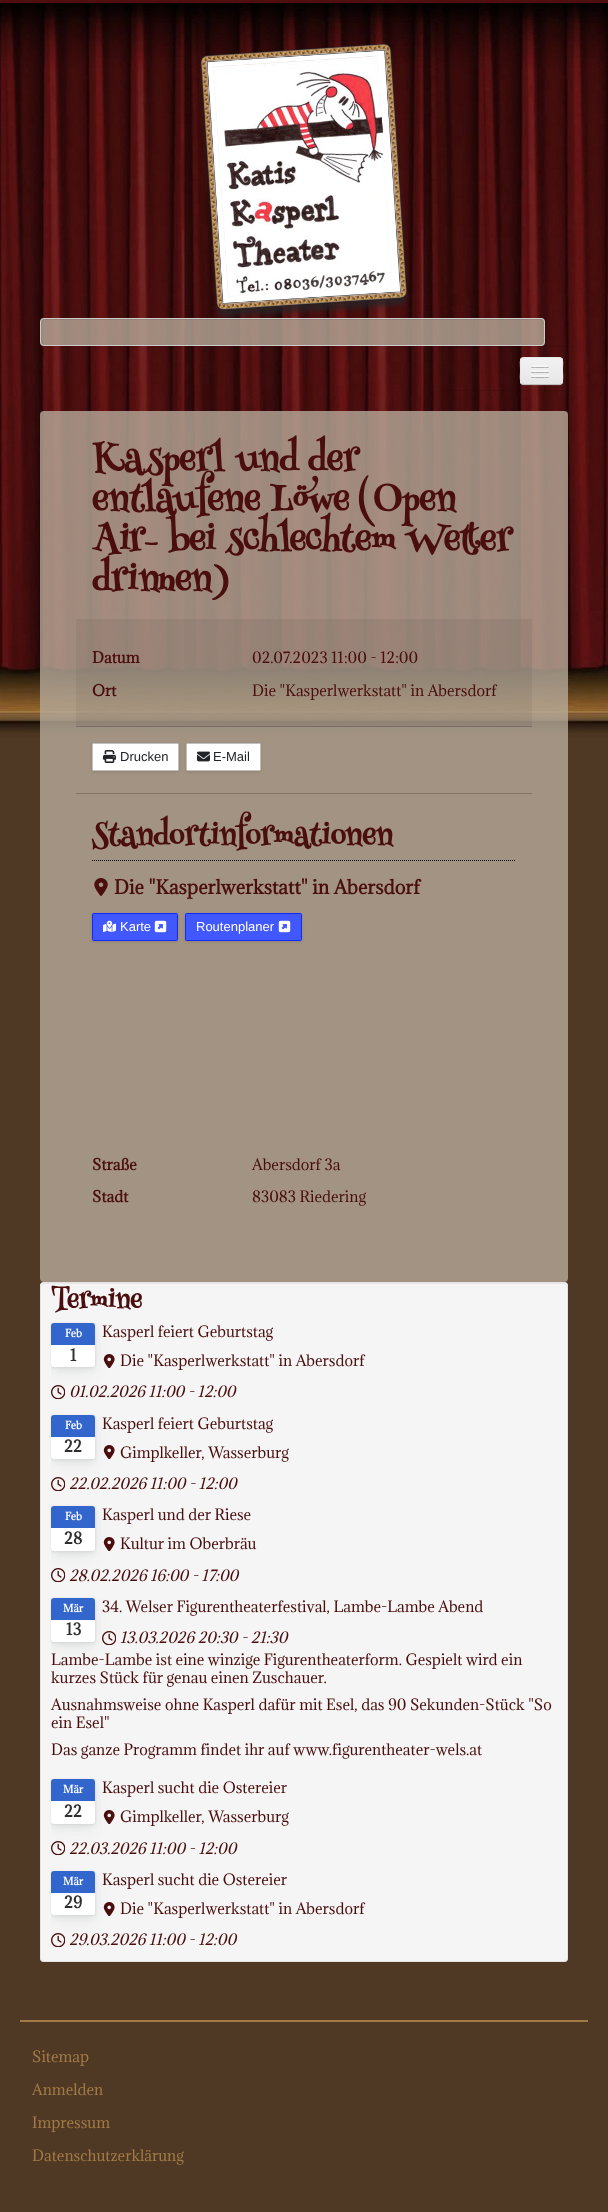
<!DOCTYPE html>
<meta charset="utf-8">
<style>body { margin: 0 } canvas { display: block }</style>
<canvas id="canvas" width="608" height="2212"></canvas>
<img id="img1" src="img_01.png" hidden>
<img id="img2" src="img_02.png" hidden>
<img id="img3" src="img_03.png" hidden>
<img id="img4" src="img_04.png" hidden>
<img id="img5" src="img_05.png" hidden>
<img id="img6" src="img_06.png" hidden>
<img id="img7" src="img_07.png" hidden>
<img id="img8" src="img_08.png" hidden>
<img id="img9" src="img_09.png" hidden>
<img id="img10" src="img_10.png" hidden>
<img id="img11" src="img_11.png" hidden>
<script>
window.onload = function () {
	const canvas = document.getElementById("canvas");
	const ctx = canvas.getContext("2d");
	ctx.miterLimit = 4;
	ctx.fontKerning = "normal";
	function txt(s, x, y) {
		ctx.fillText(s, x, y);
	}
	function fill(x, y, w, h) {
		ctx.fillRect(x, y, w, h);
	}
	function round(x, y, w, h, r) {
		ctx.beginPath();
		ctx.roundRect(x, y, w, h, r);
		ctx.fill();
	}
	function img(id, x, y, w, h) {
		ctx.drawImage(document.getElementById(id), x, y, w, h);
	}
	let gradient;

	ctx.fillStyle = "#4F3924";
	fill(0, 0, 608, 2212);
	img("img1", 0, 3, 608, 734);
	ctx.fillStyle = "#4F0F0F";
	fill(0, 0, 608, 3);
	img("img2", 200, 43, 208, 275);
	ctx.fillStyle = "rgba(182, 170, 154, 0.8)";
	round(40, 318, 505, 28, 4);
	ctx.fillStyle = "rgba(0, 0, 0, 0.07)";
	ctx.beginPath();
	ctx.moveTo(44, 320);
	ctx.lineTo(541, 320);
	ctx.bezierCurveTo(543, 320, 544, 321, 544, 323);
	ctx.bezierCurveTo(544, 321, 543, 319, 541, 319);
	ctx.lineTo(44, 319);
	ctx.bezierCurveTo(42, 319, 41, 321, 41, 323);
	ctx.bezierCurveTo(41, 321, 42, 320, 44, 320);
	ctx.closePath();
	ctx.fill();
	ctx.beginPath();
	ctx.roundRect(40.5, 318.5, 504, 27, 3.5);
	ctx.strokeStyle = "#CCCCCC";
	ctx.stroke();
	fill(441, 346, 127, 1);
	fill(441, 390, 127, 1);
	ctx.fillStyle = "rgba(255, 255, 255, 0.07)";
	ctx.beginPath();
	ctx.moveTo(520, 381);
	ctx.bezierCurveTo(520, 387, 525, 386, 530, 386);
	ctx.lineTo(553, 386);
	ctx.bezierCurveTo(558, 386, 563, 387, 563, 381);
	ctx.bezierCurveTo(563, 383, 561, 385, 559, 385);
	ctx.lineTo(524, 385);
	ctx.bezierCurveTo(522, 385, 520, 383, 520, 381);
	ctx.closePath();
	ctx.fill();
	ctx.fillStyle = "#EDEDED";
	round(520, 357, 43, 28, 4);
	ctx.save();
	ctx.beginPath();
	ctx.roundRect(520, 357, 43, 28, 4);
	ctx.clip();
	gradient = ctx.createLinearGradient(542, 358, 542, 384);
	gradient.addColorStop(0, "#F2F2F2");
	gradient.addColorStop(1, "#E6E6E6");
	ctx.fillStyle = gradient;
	fill(520, 358, 43, 26);
	ctx.restore();
	ctx.beginPath();
	ctx.moveTo(561.5, 383.5);
	ctx.bezierCurveTo(561, 384, 560, 384.5, 559, 384.5);
	ctx.lineTo(524, 384.5);
	ctx.bezierCurveTo(523, 384.5, 522, 384, 521.5, 383.5);
	ctx.strokeStyle = "#BFBFBF";
	ctx.stroke();
	ctx.beginPath();
	ctx.moveTo(521.5, 383.5);
	ctx.bezierCurveTo(519.5, 381, 520.5, 373.5, 520.5, 371);
	ctx.bezierCurveTo(520.5, 359, 518, 357.5, 530, 357.5);
	ctx.lineTo(553, 357.5);
	ctx.bezierCurveTo(565, 357.5, 562.5, 359, 562.5, 371);
	ctx.bezierCurveTo(562.5, 373.5, 563.5, 381, 561.5, 383.5);
	ctx.strokeStyle = "#E6E6E6";
	ctx.stroke();
	ctx.fillStyle = "#B3B3B3";
	ctx.beginPath();
	ctx.moveTo(531, 366.5);
	ctx.bezierCurveTo(530, 368.5, 534.5, 368, 534.5, 368);
	ctx.lineTo(545.5, 368);
	ctx.bezierCurveTo(545.5, 368, 550, 368.5, 549, 366.5);
	ctx.bezierCurveTo(548, 367.5, 541.5, 367, 540, 367);
	ctx.bezierCurveTo(538.5, 367, 532, 367.5, 531, 366.5);
	ctx.closePath();
	ctx.fill();
	ctx.fillStyle = "#F5F5F5";
	round(531, 365, 18, 2, 1);
	ctx.fillStyle = "#B0B0B0";
	ctx.beginPath();
	ctx.moveTo(531, 371.5);
	ctx.bezierCurveTo(530, 373.5, 534.5, 373, 534.5, 373);
	ctx.lineTo(545.5, 373);
	ctx.bezierCurveTo(545.5, 373, 550, 373.5, 549, 371.5);
	ctx.bezierCurveTo(548, 372.5, 541.5, 372, 540, 372);
	ctx.bezierCurveTo(538.5, 372, 532, 372.5, 531, 371.5);
	ctx.closePath();
	ctx.fill();
	ctx.fillStyle = "#F5F5F5";
	round(531, 370, 18, 2, 1);
	ctx.fillStyle = "#AFAFAF";
	ctx.beginPath();
	ctx.moveTo(531, 376.5);
	ctx.bezierCurveTo(530, 378.5, 534.5, 378, 534.5, 378);
	ctx.lineTo(545.5, 378);
	ctx.bezierCurveTo(545.5, 378, 550, 378.5, 549, 376.5);
	ctx.bezierCurveTo(548, 377.5, 541.5, 377, 540, 377);
	ctx.bezierCurveTo(538.5, 377, 532, 377.5, 531, 376.5);
	ctx.closePath();
	ctx.fill();
	ctx.fillStyle = "#F5F5F5";
	round(531, 375, 18, 2, 1);
	ctx.fillStyle = "rgba(182, 170, 154, 0.8)";
	round(40, 411, 528, 871, 4);
	ctx.fillStyle = "rgba(0, 0, 0, 0.05)";
	fill(76, 619, 456, 107);
	ctx.fillStyle = "#766C61";
	fill(76, 726, 456, 1);
	ctx.fillStyle = "#817668";
	fill(76, 793, 456, 1);
	ctx.fillStyle = "rgba(0, 0, 0, 0.1)";
	ctx.filter = "blur(1.5px)";
	ctx.beginPath();
	ctx.roundRect(92, 744, 87, 28, 1.5);
	ctx.fill();
	ctx.filter = "none";
	ctx.fillStyle = "#FEFEFE";
	ctx.beginPath();
	ctx.roundRect(92.5, 743.5, 86, 27, 1);
	ctx.fill();
	ctx.strokeStyle = "#C0C0C0";
	ctx.stroke();
	img("img3", 103, 750, 13, 13);
	ctx.fillStyle = "rgba(0, 0, 0, 0.1)";
	ctx.filter = "blur(1.5px)";
	ctx.beginPath();
	ctx.roundRect(186, 744, 75, 28, 1.5);
	ctx.fill();
	ctx.filter = "none";
	ctx.fillStyle = "#FEFEFE";
	ctx.beginPath();
	ctx.roundRect(186.5, 743.5, 74, 27, 1);
	ctx.fill();
	ctx.stroke();
	img("img4", 197, 751, 13, 11);
	img("img5", 92, 860, 423, 1);
	img("img6", 94, 878, 14, 18);
	ctx.fillStyle = "rgba(0, 0, 0, 0.1)";
	ctx.filter = "blur(1.5px)";
	ctx.beginPath();
	ctx.roundRect(92, 914, 86, 28, 1.5);
	ctx.fill();
	ctx.filter = "none";
	ctx.fillStyle = "#4258FF";
	ctx.beginPath();
	ctx.roundRect(92.5, 913.5, 85, 27, 1);
	ctx.fill();
	ctx.strokeStyle = "#0F2BFF";
	ctx.stroke();
	img("img7", 103, 920, 13, 13);
	img("img8", 154, 920, 13, 13);
	ctx.fillStyle = "rgba(0, 0, 0, 0.1)";
	ctx.filter = "blur(1.5px)";
	ctx.beginPath();
	ctx.roundRect(185, 914, 117, 28, 1.5);
	ctx.fill();
	ctx.filter = "none";
	ctx.fillStyle = "#4258FF";
	ctx.beginPath();
	ctx.roundRect(185.5, 913.5, 116, 27, 1);
	ctx.fill();
	ctx.stroke();
	img("img8", 278, 920, 13, 13);
	ctx.fillStyle = "#F5F5F5";
	round(40, 1282, 528, 680, 4);
	ctx.fillStyle = "#E9E9E9";
	ctx.beginPath();
	ctx.moveTo(44, 1284);
	ctx.lineTo(564, 1284);
	ctx.bezierCurveTo(566, 1284, 567, 1285, 567, 1287);
	ctx.lineTo(566, 1284);
	ctx.lineTo(564, 1283);
	ctx.lineTo(44, 1283);
	ctx.bezierCurveTo(42, 1283, 41, 1285, 41, 1287);
	ctx.bezierCurveTo(41, 1285, 42, 1284, 44, 1284);
	ctx.closePath();
	ctx.fill();
	ctx.beginPath();
	ctx.roundRect(40.5, 1282.5, 527, 679, 3.5);
	ctx.strokeStyle = "#E3E3E3";
	ctx.stroke();
	img("img9", 103, 1354, 12, 14);
	img("img10", 51, 1385, 14, 14);
	ctx.save();
	ctx.beginPath();
	ctx.rect(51, 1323, 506, 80);
	ctx.clip();
	ctx.fillStyle = "rgba(52, 58, 67, 0.08)";
	ctx.filter = "blur(7.5px)";
	ctx.beginPath();
	ctx.roundRect(51, 1328, 44, 44, 3);
	ctx.fill();
	ctx.filter = "none";
	ctx.filter = "blur(2.5px)";
	ctx.beginPath();
	ctx.roundRect(51, 1325, 44, 44, 3);
	ctx.fill();
	ctx.filter = "none";
	ctx.restore();
	ctx.fillStyle = "rgba(52, 58, 67, 0.1)";
	ctx.filter = "blur(1px)";
	ctx.beginPath();
	ctx.roundRect(51, 1323, 44, 44, 3);
	ctx.fill();
	ctx.filter = "none";
	ctx.fillStyle = "#FFFFFF";
	round(51, 1323, 44, 44, 3);
	ctx.fillStyle = "#3366CC";
	fill(51, 1343, 44, 2);
	ctx.beginPath();
	ctx.roundRect(51, 1323, 44, 20, [3, 3, 0, 0]);
	ctx.fill();
	img("img9", 103, 1445, 12, 14);
	img("img11", 51, 1477, 14, 14);
	ctx.save();
	ctx.beginPath();
	ctx.rect(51, 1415, 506, 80);
	ctx.clip();
	ctx.fillStyle = "rgba(52, 58, 67, 0.08)";
	ctx.filter = "blur(7.5px)";
	ctx.beginPath();
	ctx.roundRect(51, 1420, 44, 44, 3);
	ctx.fill();
	ctx.filter = "none";
	ctx.filter = "blur(2.5px)";
	ctx.beginPath();
	ctx.roundRect(51, 1417, 44, 44, 3);
	ctx.fill();
	ctx.filter = "none";
	ctx.restore();
	ctx.fillStyle = "rgba(52, 58, 67, 0.1)";
	ctx.filter = "blur(1px)";
	ctx.beginPath();
	ctx.roundRect(51, 1415, 44, 44, 3);
	ctx.fill();
	ctx.filter = "none";
	ctx.fillStyle = "#FFFFFF";
	round(51, 1415, 44, 44, 3);
	ctx.fillStyle = "#3366CC";
	fill(51, 1435, 44, 2);
	ctx.beginPath();
	ctx.roundRect(51, 1415, 44, 20, [3, 3, 0, 0]);
	ctx.fill();
	img("img9", 103, 1537, 12, 14);
	img("img11", 51, 1568, 14, 14);
	ctx.save();
	ctx.beginPath();
	ctx.rect(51, 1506, 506, 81);
	ctx.clip();
	ctx.fillStyle = "rgba(52, 58, 67, 0.08)";
	ctx.filter = "blur(7.5px)";
	ctx.beginPath();
	ctx.roundRect(51, 1511, 44, 45, 3);
	ctx.fill();
	ctx.filter = "none";
	ctx.filter = "blur(2.5px)";
	ctx.beginPath();
	ctx.roundRect(51, 1508, 44, 45, 3);
	ctx.fill();
	ctx.filter = "none";
	ctx.restore();
	ctx.fillStyle = "rgba(52, 58, 67, 0.1)";
	ctx.filter = "blur(1px)";
	ctx.beginPath();
	ctx.roundRect(51, 1506, 44, 45, 3);
	ctx.fill();
	ctx.filter = "none";
	ctx.fillStyle = "#FFFFFF";
	round(51, 1506, 44, 45, 3);
	ctx.fillStyle = "#3366CC";
	fill(51, 1526, 44, 2);
	ctx.beginPath();
	ctx.roundRect(51, 1506, 44, 20, [3, 3, 0, 0]);
	ctx.fill();
	img("img11", 102, 1631, 14, 14);
	ctx.save();
	ctx.beginPath();
	ctx.rect(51, 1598, 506, 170);
	ctx.clip();
	ctx.fillStyle = "rgba(52, 58, 67, 0.08)";
	ctx.filter = "blur(7.5px)";
	ctx.beginPath();
	ctx.roundRect(51, 1603, 44, 44, 3);
	ctx.fill();
	ctx.filter = "none";
	ctx.filter = "blur(2.5px)";
	ctx.beginPath();
	ctx.roundRect(51, 1600, 44, 44, 3);
	ctx.fill();
	ctx.filter = "none";
	ctx.restore();
	ctx.fillStyle = "rgba(52, 58, 67, 0.1)";
	ctx.filter = "blur(1px)";
	ctx.beginPath();
	ctx.roundRect(51, 1598, 44, 44, 3);
	ctx.fill();
	ctx.filter = "none";
	ctx.fillStyle = "#FFFFFF";
	round(51, 1598, 44, 44, 3);
	ctx.fillStyle = "#3366CC";
	fill(51, 1618, 44, 2);
	ctx.beginPath();
	ctx.roundRect(51, 1598, 44, 20, [3, 3, 0, 0]);
	ctx.fill();
	img("img9", 103, 1810, 12, 14);
	img("img11", 51, 1841, 14, 14);
	ctx.save();
	ctx.beginPath();
	ctx.rect(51, 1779, 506, 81);
	ctx.clip();
	ctx.fillStyle = "rgba(52, 58, 67, 0.08)";
	ctx.filter = "blur(7.5px)";
	ctx.beginPath();
	ctx.roundRect(51, 1784, 44, 45, 3);
	ctx.fill();
	ctx.filter = "none";
	ctx.filter = "blur(2.5px)";
	ctx.beginPath();
	ctx.roundRect(51, 1781, 44, 45, 3);
	ctx.fill();
	ctx.filter = "none";
	ctx.restore();
	ctx.fillStyle = "rgba(52, 58, 67, 0.1)";
	ctx.filter = "blur(1px)";
	ctx.beginPath();
	ctx.roundRect(51, 1779, 44, 45, 3);
	ctx.fill();
	ctx.filter = "none";
	ctx.fillStyle = "#FFFFFF";
	round(51, 1779, 44, 45, 3);
	ctx.fillStyle = "#3366CC";
	fill(51, 1799, 44, 2);
	ctx.beginPath();
	ctx.roundRect(51, 1779, 44, 20, [3, 3, 0, 0]);
	ctx.fill();
	img("img9", 103, 1902, 12, 14);
	img("img11", 51, 1933, 14, 14);
	ctx.save();
	ctx.beginPath();
	ctx.rect(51, 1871, 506, 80);
	ctx.clip();
	ctx.fillStyle = "rgba(52, 58, 67, 0.08)";
	ctx.filter = "blur(7.5px)";
	ctx.beginPath();
	ctx.roundRect(51, 1876, 44, 44, 3);
	ctx.fill();
	ctx.filter = "none";
	ctx.filter = "blur(2.5px)";
	ctx.beginPath();
	ctx.roundRect(51, 1873, 44, 44, 3);
	ctx.fill();
	ctx.filter = "none";
	ctx.restore();
	ctx.fillStyle = "rgba(52, 58, 67, 0.1)";
	ctx.filter = "blur(1px)";
	ctx.beginPath();
	ctx.roundRect(51, 1871, 44, 44, 3);
	ctx.fill();
	ctx.filter = "none";
	ctx.fillStyle = "#FFFFFF";
	round(51, 1871, 44, 44, 3);
	ctx.fillStyle = "#3366CC";
	fill(51, 1891, 44, 2);
	ctx.beginPath();
	ctx.roundRect(51, 1871, 44, 20, [3, 3, 0, 0]);
	ctx.fill();
	ctx.fillStyle = "#A27A46";
	fill(20, 2020, 568, 2);
	ctx.font = "bold 36px Henny Penny";
	ctx.fillStyle = "#4A0E0E";
	txt("Kasperl und der", 92, 472);
	txt("entlaufene Löwe (Open", 92, 512);
	txt("Air- bei schlechtem Wetter", 92, 552);
	txt("drinnen)", 92, 592);
	ctx.font = "bold 14.4px Adamina";
	txt("Datum", 92, 663);
	ctx.font = "14.4px Adamina";
	txt("02.07.2023 11:00 - 12:00", 252, 663);
	ctx.font = "bold 14.4px Adamina";
	txt("Ort", 92, 696);
	ctx.font = "14.4px Adamina";
	txt("Die \"Kasperlwerkstatt\" in Abersdorf", 252, 696);
	ctx.font = "13px Liberation Sans";
	ctx.fillStyle = "#212529";
	txt("Drucken", 120, 761);
	txt("E-Mail", 213, 761);
	ctx.font = "bold 30px Henny Penny";
	ctx.fillStyle = "#4A0E0E";
	txt("Standortinformationen", 92, 846);
	ctx.font = "bold 18px Adamina";
	txt("Die \"Kasperlwerkstatt\" in Abersdorf", 114, 894);
	ctx.font = "13px Liberation Sans";
	ctx.fillStyle = "#FFFFFF";
	txt("Karte", 120, 931);
	txt("Routenplaner", 196, 931);
	ctx.font = "bold 14.4px Adamina";
	ctx.fillStyle = "#4A0E0E";
	txt("Straße", 92, 1170);
	ctx.font = "14.4px Adamina";
	txt("Abersdorf 3a", 252, 1170);
	ctx.font = "bold 14.4px Adamina";
	txt("Stadt", 92, 1202);
	ctx.font = "14.4px Adamina";
	txt("83083 Riedering", 252, 1202);
	ctx.font = "bold 26px Henny Penny";
	txt("Termine", 51, 1309);
	ctx.font = "14.4px Adamina";
	txt("Kasperl feiert Geburtstag", 102, 1337);
	txt("Die \"Kasperlwerkstatt\" in Abersdorf", 120, 1366);
	ctx.font = "italic 14.4px Adamina";
	txt("01.02.2026 11:00 - 12:00", 69, 1397);
	ctx.font = "bold 10px Adamina";
	ctx.fillStyle = "#FFFFFF";
	txt("Feb", 65, 1337);
	ctx.font = "bold 15px Adamina";
	ctx.fillStyle = "#2F2F2F";
	txt("1", 70, 1361);
	ctx.font = "14.4px Adamina";
	ctx.fillStyle = "#4A0E0E";
	txt("Kasperl feiert Geburtstag", 102, 1429);
	txt("Gimplkeller, Wasserburg", 120, 1458);
	ctx.font = "italic 14.4px Adamina";
	txt("22.02.2026 11:00 - 12:00", 69, 1489);
	ctx.font = "bold 10px Adamina";
	ctx.fillStyle = "#FFFFFF";
	txt("Feb", 65, 1429);
	ctx.font = "bold 15px Adamina";
	ctx.fillStyle = "#2F2F2F";
	txt("22", 64, 1452);
	ctx.font = "14.4px Adamina";
	ctx.fillStyle = "#4A0E0E";
	txt("Kasperl und der Riese", 102, 1520);
	txt("Kultur im Oberbräu", 120, 1549);
	ctx.font = "italic 14.4px Adamina";
	txt("28.02.2026 16:00 - 17:00", 69, 1581);
	ctx.font = "bold 10px Adamina";
	ctx.fillStyle = "#FFFFFF";
	txt("Feb", 65, 1520);
	ctx.font = "bold 15px Adamina";
	ctx.fillStyle = "#2F2F2F";
	txt("28", 64, 1544);
	ctx.font = "bold 10px Adamina";
	ctx.fillStyle = "#FFFFFF";
	txt("Mär", 63, 1612);
	ctx.font = "bold 15px Adamina";
	ctx.fillStyle = "#2F2F2F";
	txt("13", 66, 1635);
	ctx.font = "14.4px Adamina";
	ctx.fillStyle = "#4A0E0E";
	txt("34. Welser Figurentheaterfestival, Lambe-Lambe Abend", 102, 1612);
	ctx.font = "italic 14.4px Adamina";
	txt("13.03.2026 20:30 - 21:30", 120, 1643);
	ctx.font = "14.4px Adamina";
	txt("Lambe-Lambe ist eine winzige Figurentheaterform. Gespielt wird ein", 51, 1665);
	txt("kurzes Stück für genau einen Zuschauer.", 51, 1683);
	txt("Ausnahmsweise ohne Kasperl dafür mit Esel, das 90 Sekunden-Stück \"So", 51, 1710);
	txt("ein Esel\"", 51, 1728);
	txt("Das ganze Programm findet ihr auf www.figurentheater-wels.at", 51, 1755);
	txt("Kasperl sucht die Ostereier", 102, 1793);
	txt("Gimplkeller, Wasserburg", 120, 1822);
	ctx.font = "italic 14.4px Adamina";
	txt("22.03.2026 11:00 - 12:00", 69, 1854);
	ctx.font = "bold 10px Adamina";
	ctx.fillStyle = "#FFFFFF";
	txt("Mär", 63, 1793);
	ctx.font = "bold 15px Adamina";
	ctx.fillStyle = "#2F2F2F";
	txt("22", 64, 1817);
	ctx.font = "14.4px Adamina";
	ctx.fillStyle = "#4A0E0E";
	txt("Kasperl sucht die Ostereier", 102, 1885);
	txt("Die \"Kasperlwerkstatt\" in Abersdorf", 120, 1914);
	ctx.font = "italic 14.4px Adamina";
	txt("29.03.2026 11:00 - 12:00", 69, 1945);
	ctx.font = "bold 10px Adamina";
	ctx.fillStyle = "#FFFFFF";
	txt("Mär", 63, 1885);
	ctx.font = "bold 15px Adamina";
	ctx.fillStyle = "#2F2F2F";
	txt("29", 64, 1908);
	ctx.font = "14.4px Adamina";
	ctx.fillStyle = "#A27A46";
	txt("Sitemap", 32, 2062);
	txt("Anmelden", 32, 2095);
	txt("Impressum", 32, 2128);
	txt("Datenschutzerklärung", 32, 2161);
};
</script>
